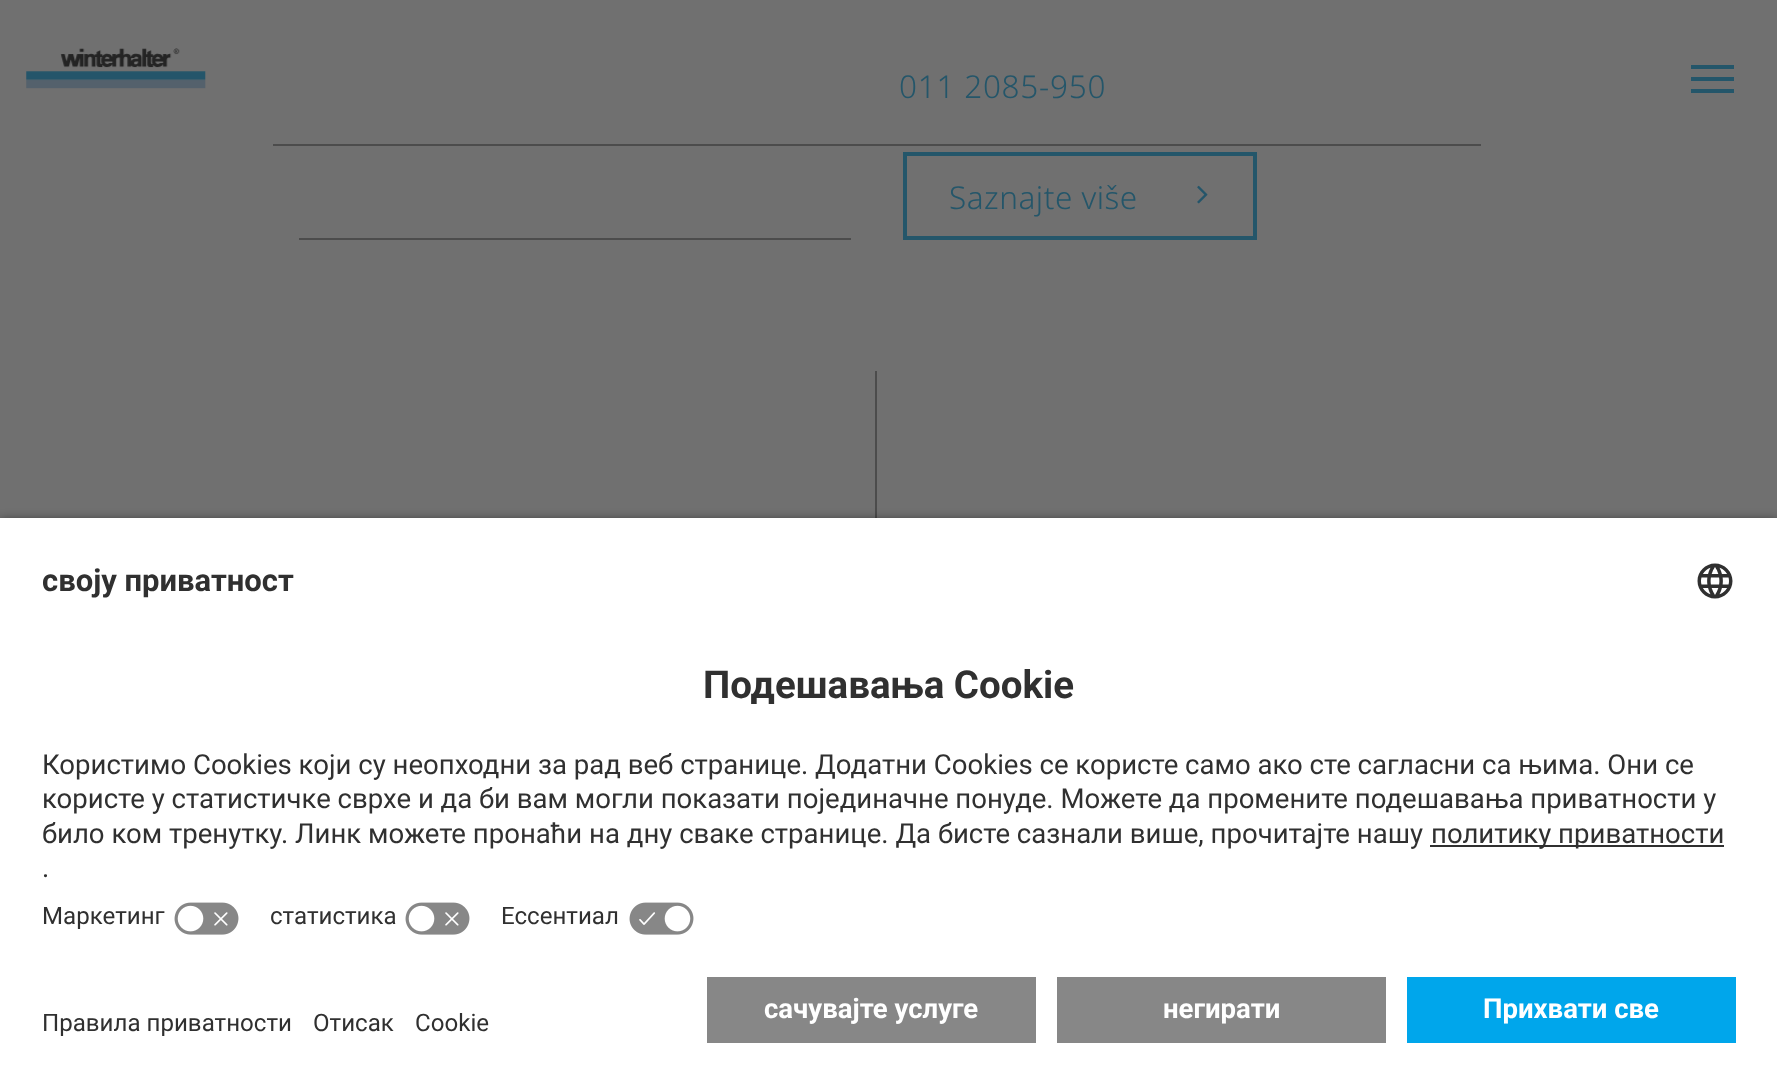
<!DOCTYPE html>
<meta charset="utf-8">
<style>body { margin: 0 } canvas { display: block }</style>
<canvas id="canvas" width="1777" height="1085"></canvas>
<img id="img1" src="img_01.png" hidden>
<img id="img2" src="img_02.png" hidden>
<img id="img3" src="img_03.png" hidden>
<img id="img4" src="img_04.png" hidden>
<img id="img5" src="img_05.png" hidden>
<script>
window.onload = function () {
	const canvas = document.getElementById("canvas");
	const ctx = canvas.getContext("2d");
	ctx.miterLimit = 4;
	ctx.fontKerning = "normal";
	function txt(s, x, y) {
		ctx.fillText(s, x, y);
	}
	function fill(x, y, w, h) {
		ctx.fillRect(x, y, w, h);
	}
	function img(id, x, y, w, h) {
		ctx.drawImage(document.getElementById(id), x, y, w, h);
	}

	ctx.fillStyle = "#707070";
	fill(0, 0, 1777, 1085);
	img("img1", 26, 48, 180, 41);
	ctx.fillStyle = "#24566A";
	fill(1691, 65, 43, 4);
	fill(1691, 77, 43, 4);
	fill(1691, 89, 43, 4);
	ctx.fillStyle = "#4C4C4C";
	fill(273, 144, 1208, 2);
	ctx.strokeStyle = "#24566A";
	ctx.lineWidth = 4;
	ctx.strokeRect(905, 154, 350, 84);
	img("img2", 1197, 185, 11, 19);
	fill(299, 238, 552, 2);
	fill(875, 371, 2, 147);
	ctx.fillStyle = "rgba(0, 0, 0, 0.8)";
	ctx.filter = "blur(6px)";
	ctx.beginPath();
	ctx.rect(0, 522, 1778, 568);
	ctx.fill();
	ctx.filter = "none";
	ctx.fillStyle = "#FFFFFF";
	fill(0, 518, 1777, 567);
	img("img3", 1697, 563, 36, 36);
	ctx.fillStyle = "#303030";
	fill(1430, 845, 294, 2);
	img("img4", 174, 902, 65, 33);
	img("img4", 405, 902, 65, 33);
	img("img5", 629, 902, 65, 33);
	ctx.fillStyle = "#878787";
	fill(707, 977, 329, 66);
	fill(1057, 977, 329, 66);
	ctx.fillStyle = "#00A6EB";
	fill(1407, 977, 329, 66);
	ctx.letterSpacing = "0.75px";
	ctx.font = "300 31.5px Noto Sans";
	ctx.fillStyle = "#24566A";
	txt("011 2085-950", 899, 98);
	ctx.letterSpacing = "0.5px";
	txt("Saznajte više", 949, 209);
	ctx.letterSpacing = "0px";
	ctx.font = "bold 31px Roboto";
	ctx.fillStyle = "#303030";
	txt("своју приватност", 42, 591);
	ctx.font = "bold 38.5px Roboto";
	txt("Подешавања Cookie", 703, 698);
	ctx.font = "27.55px Roboto";
	txt("Користимо Cookies који су неопходни за рад веб странице. Додатни Cookies се користе само ако сте сагласни са њима. Они се", 42, 774);
	txt("користе у статистичке сврхе и да би вам могли показати појединачне понуде. Можете да промените подешавања приватности у", 42, 808);
	txt("било ком тренутку. Линк можете пронаћи на дну сваке странице. Да бисте сазнали више, прочитајте нашу", 42, 843);
	txt("политику приватности", 1431, 843);
	txt(".", 42, 877);
	ctx.font = "24.1px Roboto";
	txt("Маркетинг", 42, 924);
	txt("статистика", 270, 924);
	txt("Ессентиал", 501, 924);
	txt("Правила приватности", 42, 1031);
	txt("Отисак", 313, 1031);
	txt("Cookie", 415, 1031);
	ctx.font = "bold 27.55px Roboto";
	ctx.fillStyle = "#FFFFFF";
	txt("сачувајте услуге", 764, 1018);
	txt("негирати", 1163, 1018);
	txt("Прихвати све", 1483, 1018);
};
</script>
